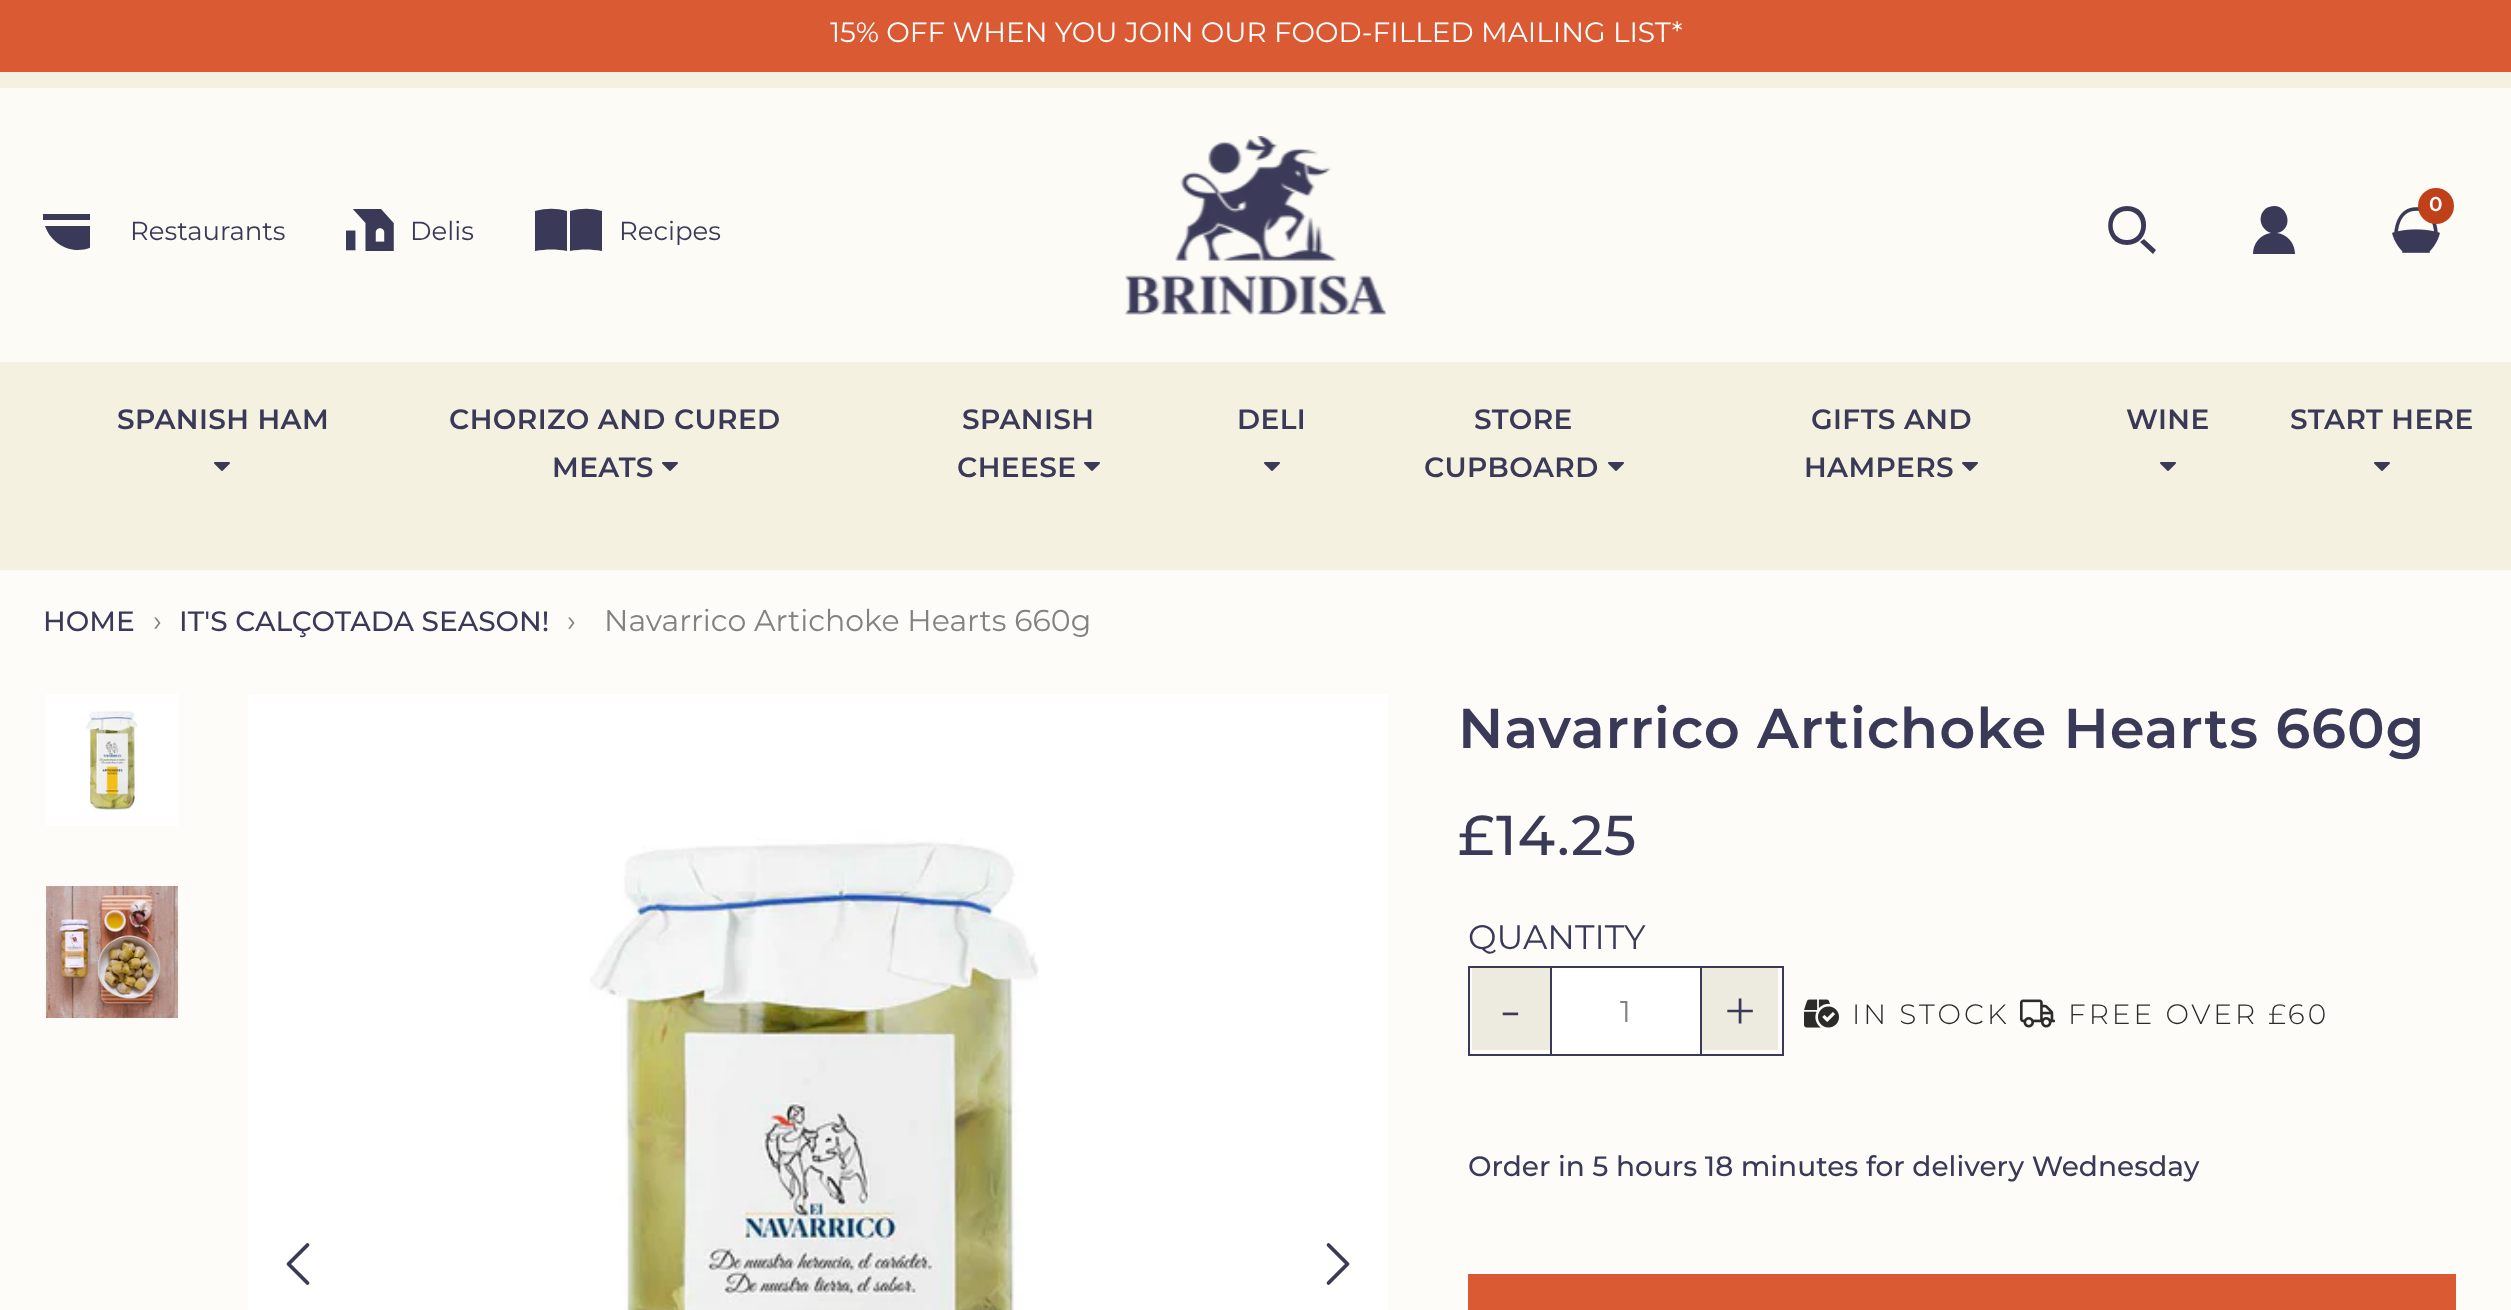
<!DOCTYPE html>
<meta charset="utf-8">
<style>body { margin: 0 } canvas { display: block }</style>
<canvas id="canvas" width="2511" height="1310"></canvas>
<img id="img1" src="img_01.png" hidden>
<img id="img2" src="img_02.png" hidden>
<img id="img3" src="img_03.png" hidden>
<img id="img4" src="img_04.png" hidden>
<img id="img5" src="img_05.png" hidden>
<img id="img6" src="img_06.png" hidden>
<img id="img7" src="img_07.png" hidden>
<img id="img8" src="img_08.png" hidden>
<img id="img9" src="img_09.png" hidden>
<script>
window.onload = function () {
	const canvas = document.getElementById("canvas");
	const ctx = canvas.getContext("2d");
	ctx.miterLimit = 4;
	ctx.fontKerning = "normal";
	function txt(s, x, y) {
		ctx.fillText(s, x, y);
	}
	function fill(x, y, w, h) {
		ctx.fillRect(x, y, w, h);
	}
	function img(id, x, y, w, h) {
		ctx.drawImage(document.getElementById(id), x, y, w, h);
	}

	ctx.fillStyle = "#FDFCF9";
	fill(0, 0, 2511, 1310);
	ctx.fillStyle = "#DA5A33";
	fill(0, 0, 2511, 72);
	ctx.fillStyle = "#F5F1E0";
	fill(0, 72, 2511, 498);
	ctx.fillStyle = "#FCFBF6";
	fill(0, 88, 2511, 274);
	img("img1", 1125, 136, 261, 179);
	img("img2", 2392, 207, 48, 46);
	ctx.fillStyle = "#C0401A";
	ctx.beginPath();
	ctx.arc(2436, 206, 18, 0, Math.PI * 2);
	ctx.fill();
	ctx.fillStyle = "#3A3A58";
	ctx.beginPath();
	ctx.moveTo(2153, 254);
	ctx.lineTo(2140, 242);
	ctx.lineTo(2144, 239);
	ctx.lineTo(2156, 250);
	ctx.closePath();
	ctx.moveTo(2127, 245);
	ctx.bezierCurveTo(2102, 245, 2102, 206, 2127, 206);
	ctx.bezierCurveTo(2153, 206, 2152, 245, 2127, 245);
	ctx.closePath();
	ctx.moveTo(2127, 211);
	ctx.bezierCurveTo(2108, 211, 2108, 240, 2127, 240);
	ctx.bezierCurveTo(2146, 240, 2146, 211, 2127, 211);
	ctx.closePath();
	ctx.fill();
	ctx.beginPath();
	ctx.moveTo(2253, 254);
	ctx.bezierCurveTo(2253, 243, 2261, 234, 2271, 233);
	ctx.bezierCurveTo(2264, 231, 2259, 223, 2261, 216);
	ctx.bezierCurveTo(2262, 212, 2265, 208, 2269, 207);
	ctx.bezierCurveTo(2287, 200, 2296, 229, 2277, 233);
	ctx.bezierCurveTo(2287, 234, 2295, 243, 2295, 254);
	ctx.closePath();
	ctx.fill();
	ctx.save();
	ctx.beginPath();
	ctx.rect(42, 206, 48, 48);
	ctx.clip();
	ctx.beginPath();
	ctx.moveTo(78, 250);
	ctx.bezierCurveTo(63, 250, 50, 240, 45, 226);
	ctx.lineTo(111, 226);
	ctx.bezierCurveTo(106, 240, 93, 250, 78, 250);
	ctx.closePath();
	ctx.moveTo(113, 220);
	ctx.lineTo(43, 220);
	ctx.lineTo(43, 214);
	ctx.lineTo(113, 214);
	ctx.closePath();
	ctx.fill();
	ctx.restore();
	img("img3", 346, 209, 48, 42);
	ctx.beginPath();
	ctx.moveTo(567, 251);
	ctx.bezierCurveTo(556, 249, 547, 249, 535, 251);
	ctx.lineTo(535, 211);
	ctx.bezierCurveTo(547, 208, 556, 208, 567, 211);
	ctx.closePath();
	ctx.fill("evenodd");
	ctx.beginPath();
	ctx.moveTo(602, 251);
	ctx.bezierCurveTo(590, 249, 582, 249, 570, 251);
	ctx.lineTo(570, 211);
	ctx.bezierCurveTo(582, 208, 590, 208, 602, 211);
	ctx.closePath();
	ctx.fill("evenodd");
	img("img4", 214, 462, 16, 9);
	img("img4", 662, 462, 16, 9);
	img("img4", 1084, 462, 16, 9);
	img("img4", 1264, 462, 16, 9);
	img("img4", 1608, 462, 16, 9);
	img("img4", 1962, 462, 16, 9);
	img("img4", 2160, 462, 16, 9);
	img("img4", 2374, 462, 16, 9);
	img("img5", 46, 694, 132, 132);
	img("img6", 46, 886, 132, 132);
	img("img7", 248, 694, 1140, 616);
	ctx.beginPath();
	ctx.moveTo(307.5, 1283);
	ctx.lineTo(288.5, 1264);
	ctx.lineTo(307.5, 1245);
	ctx.strokeStyle = "#3A3A58";
	ctx.lineWidth = 3.8;
	ctx.lineCap = "round";
	ctx.lineJoin = "round";
	ctx.stroke();
	ctx.beginPath();
	ctx.moveTo(1328.5, 1245);
	ctx.lineTo(1347.5, 1264);
	ctx.lineTo(1328.5, 1283);
	ctx.stroke();
	ctx.lineWidth = 2;
	ctx.lineJoin = "miter";
	ctx.strokeRect(1469, 967, 314, 88);
	ctx.fillStyle = "#EDEADF";
	fill(1472, 968, 78, 82);
	ctx.fillStyle = "#FFFFFF";
	fill(1552, 968, 148, 86);
	ctx.fillStyle = "#3A3A58";
	fill(1700, 968, 2, 86);
	fill(1550, 968, 2, 86);
	ctx.fillStyle = "#EDEADF";
	fill(1702, 968, 76, 82);
	img("img8", 1804, 999, 35, 29);
	img("img9", 2020, 999, 35, 29);
	ctx.fillStyle = "#DA5A33";
	fill(1468, 1274, 988, 36);
	ctx.font = "100 28px Montserrat";
	ctx.fillStyle = "#FFFFFF";
	txt("15% OFF WHEN YOU JOIN OUR FOOD-FILLED MAILING LIST*", 830, 42);
	ctx.font = "600 20px Montserrat";
	txt("0", 2429, 211);
	ctx.font = "100 26px Montserrat";
	ctx.fillStyle = "#3A3A58";
	txt("Restaurants", 130, 240);
	txt("Delis", 410, 240);
	txt("Recipes", 619, 240);
	ctx.letterSpacing = "0.4px";
	ctx.font = "600 28px Montserrat";
	txt("SPANISH HAM", 117, 429);
	txt("CHORIZO AND CURED", 449, 429);
	txt("MEATS", 552, 477);
	txt("SPANISH", 962, 429);
	txt("CHEESE", 957, 477);
	txt("DELI", 1237, 429);
	txt("STORE", 1474, 429);
	txt("CUPBOARD", 1424, 477);
	txt("GIFTS AND", 1811, 429);
	txt("HAMPERS", 1804, 477);
	txt("WINE", 2126, 429);
	txt("START HERE", 2290, 429);
	ctx.letterSpacing = "0px";
	ctx.font = "500 28px Montserrat";
	txt("HOME", 43, 631);
	ctx.font = "100 30px Montserrat";
	ctx.fillStyle = "#828282";
	txt("›", 153, 631);
	ctx.font = "500 28px Montserrat";
	ctx.fillStyle = "#3A3A58";
	txt("IT'S CALÇOTADA SEASON!", 179, 631);
	ctx.font = "100 30px Montserrat";
	ctx.fillStyle = "#828282";
	txt("›", 567, 631);
	txt("Navarrico Artichoke Hearts 660g", 604, 631);
	ctx.letterSpacing = "0.85px";
	ctx.font = "600 56px Montserrat";
	ctx.fillStyle = "#3A3A58";
	txt("Navarrico Artichoke Hearts 660g", 1458, 748);
	ctx.font = "500 56px Montserrat";
	txt("£14.25", 1458, 855);
	ctx.letterSpacing = "0px";
	ctx.font = "100 34px Montserrat";
	txt("QUANTITY", 1468, 949);
	ctx.font = "300 60px Montserrat";
	txt("-", 1499, 1030);
	ctx.font = "100 30px Montserrat";
	ctx.fillStyle = "#828282";
	txt("1", 1620, 1022);
	ctx.font = "300 60px Montserrat";
	ctx.fillStyle = "#3A3A58";
	txt("+", 1723, 1032);
	ctx.letterSpacing = "3px";
	ctx.font = "300 28px Montserrat";
	ctx.fillStyle = "#2B2B2A";
	txt("IN STOCK", 1852, 1024);
	txt("FREE OVER £60", 2068, 1024);
	ctx.letterSpacing = "0px";
	ctx.font = "500 28px Montserrat";
	ctx.fillStyle = "#3A3A58";
	txt("Order in 5 hours 18 minutes for delivery Wednesday", 1468, 1176);
};
</script>
